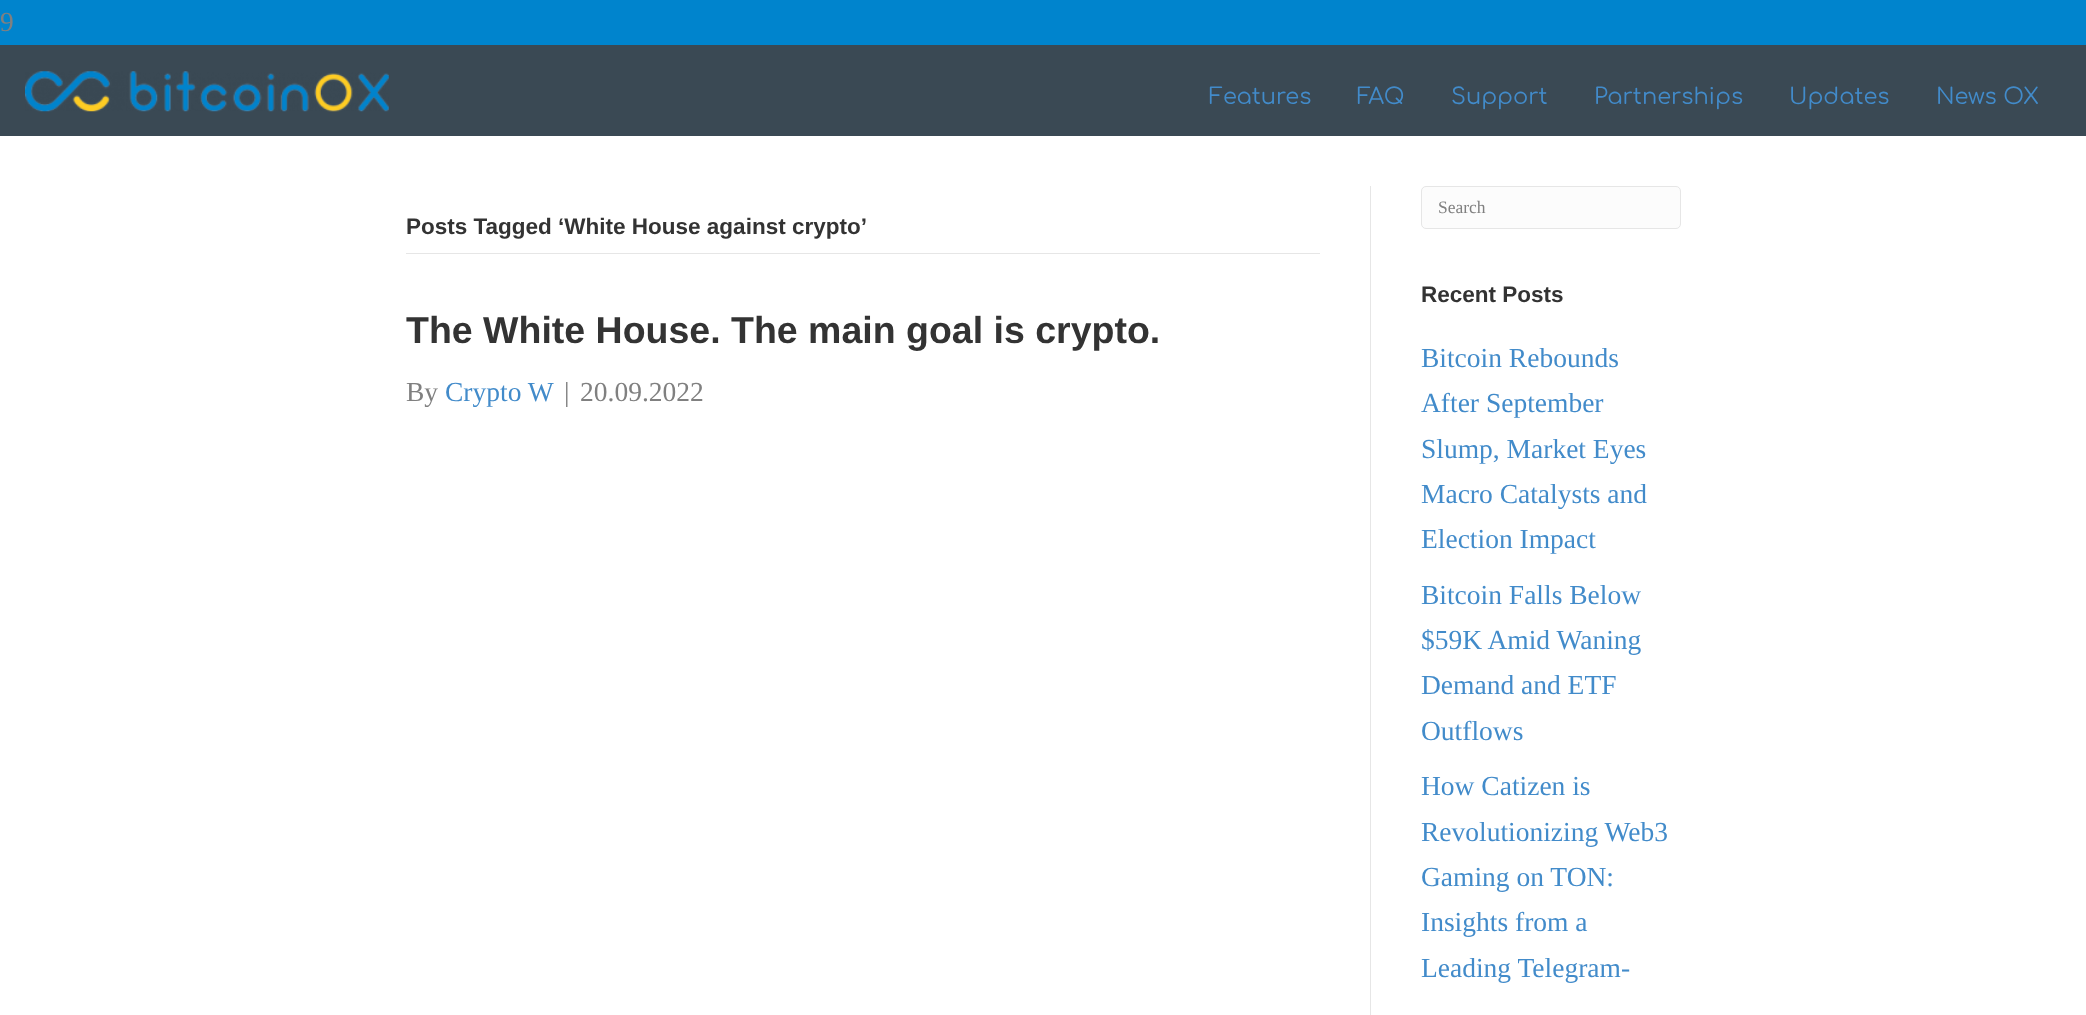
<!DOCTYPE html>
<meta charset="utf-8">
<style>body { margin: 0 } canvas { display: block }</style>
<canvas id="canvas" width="2086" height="1015"></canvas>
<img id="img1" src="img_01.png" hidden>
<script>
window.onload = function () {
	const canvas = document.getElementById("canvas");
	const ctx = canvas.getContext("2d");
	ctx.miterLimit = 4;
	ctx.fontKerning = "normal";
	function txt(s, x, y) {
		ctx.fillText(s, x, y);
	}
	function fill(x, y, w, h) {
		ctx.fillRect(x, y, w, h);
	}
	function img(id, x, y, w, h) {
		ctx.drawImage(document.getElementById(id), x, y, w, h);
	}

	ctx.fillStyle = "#0084CD";
	fill(0, 0, 2086, 1015);
	ctx.fillStyle = "#3A4954";
	fill(0, 45, 2086, 91);
	img("img1", 25, 71, 364, 41);
	ctx.fillStyle = "#FFFFFF";
	fill(0, 136, 2086, 879);
	ctx.fillStyle = "#E6E6E6";
	fill(1370, 186, 1, 829);
	fill(406, 253, 914, 1);
	ctx.fillStyle = "#FCFCFC";
	ctx.beginPath();
	ctx.roundRect(1421.5, 186.5, 259, 42, 4.5);
	ctx.fill();
	ctx.strokeStyle = "#E6E6E6";
	ctx.stroke();
	ctx.font = "27.5px Liberation Serif";
	ctx.fillStyle = "#808080";
	txt("9", 0, 31);
	ctx.font = "22.5px Comfortaa";
	ctx.fillStyle = "#428BCA";
	txt("Features", 1209, 104);
	txt("FAQ", 1357, 104);
	txt("Support", 1451, 104);
	txt("Partnerships", 1594, 104);
	txt("Updates", 1789, 104);
	txt("News OX", 1936, 104);
	ctx.font = "bold 22.5px Liberation Sans";
	ctx.fillStyle = "#333333";
	txt("Posts Tagged ‘White House against crypto’", 406, 234);
	ctx.font = "bold 37.5px Liberation Sans";
	txt("The White House. The main goal is crypto.", 406, 343);
	ctx.font = "27.5px Liberation Serif";
	ctx.fillStyle = "#808080";
	txt("By", 406, 401);
	ctx.fillStyle = "#428BCA";
	txt("Crypto W", 445, 401);
	ctx.fillStyle = "#808080";
	txt("|", 564, 401);
	txt("20.09.2022", 580, 401);
	ctx.font = "17.5px Liberation Serif";
	txt("Search", 1438, 213);
	ctx.font = "bold 22.5px Liberation Sans";
	ctx.fillStyle = "#333333";
	txt("Recent Posts", 1421, 302);
	ctx.font = "27.5px Liberation Serif";
	ctx.fillStyle = "#428BCA";
	txt("Bitcoin Rebounds", 1421, 367);
	txt("After September", 1421, 412);
	txt("Slump, Market Eyes", 1421, 458);
	txt("Macro Catalysts and", 1421, 503);
	txt("Election Impact", 1421, 548);
	txt("Bitcoin Falls Below", 1421, 604);
	txt("$59K Amid Waning", 1421, 649);
	txt("Demand and ETF", 1421, 694);
	txt("Outflows", 1421, 740);
	txt("How Catizen is", 1421, 795);
	txt("Revolutionizing Web3", 1421, 841);
	txt("Gaming on TON:", 1421, 886);
	txt("Insights from a", 1421, 931);
	txt("Leading Telegram-", 1421, 977);
};
</script>
